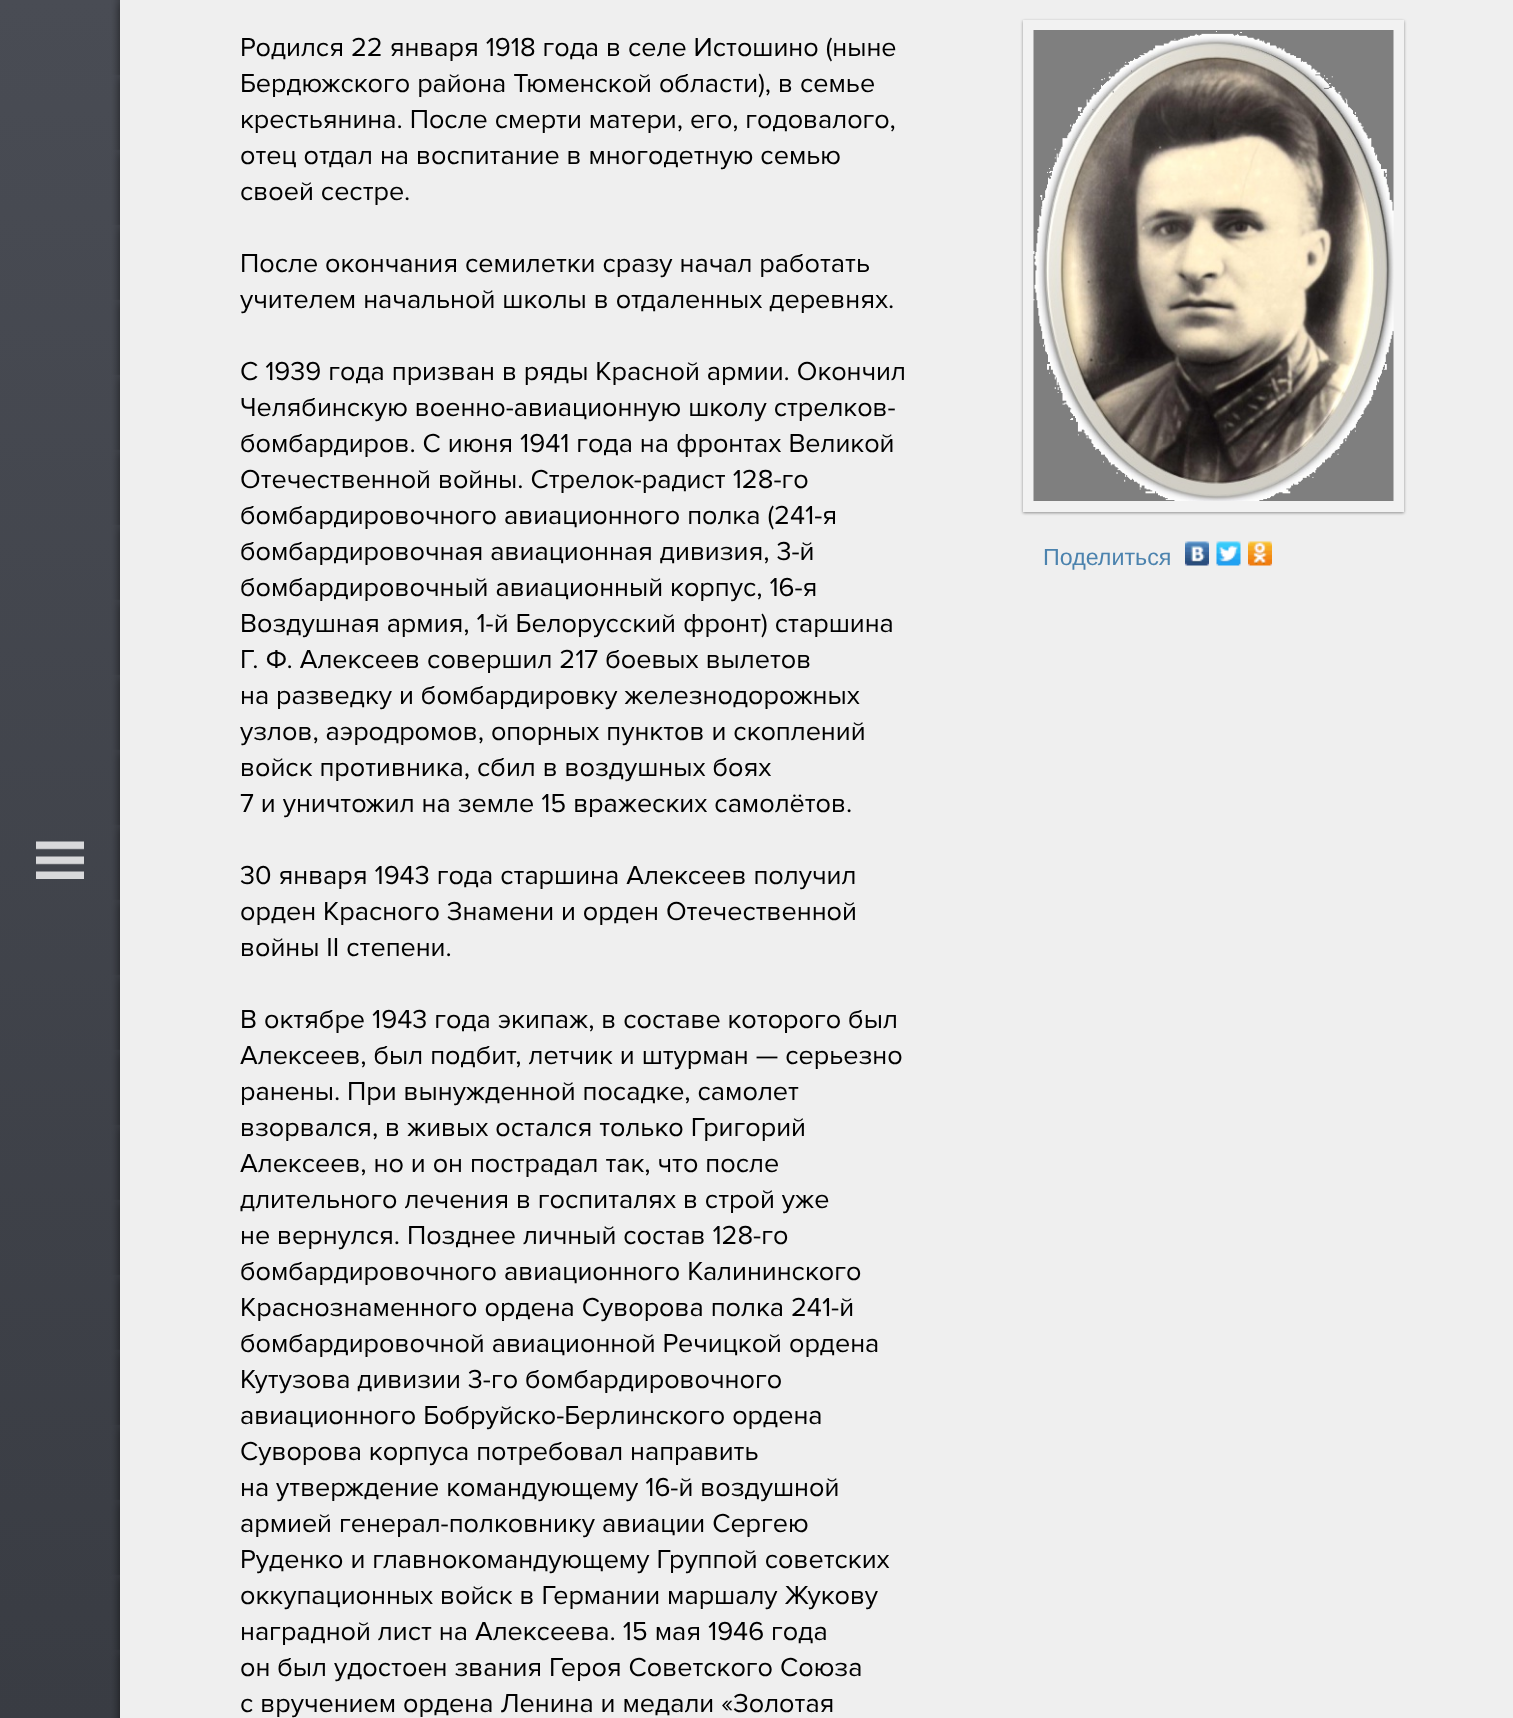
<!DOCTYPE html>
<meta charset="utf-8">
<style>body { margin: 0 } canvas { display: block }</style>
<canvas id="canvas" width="1513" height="1718"></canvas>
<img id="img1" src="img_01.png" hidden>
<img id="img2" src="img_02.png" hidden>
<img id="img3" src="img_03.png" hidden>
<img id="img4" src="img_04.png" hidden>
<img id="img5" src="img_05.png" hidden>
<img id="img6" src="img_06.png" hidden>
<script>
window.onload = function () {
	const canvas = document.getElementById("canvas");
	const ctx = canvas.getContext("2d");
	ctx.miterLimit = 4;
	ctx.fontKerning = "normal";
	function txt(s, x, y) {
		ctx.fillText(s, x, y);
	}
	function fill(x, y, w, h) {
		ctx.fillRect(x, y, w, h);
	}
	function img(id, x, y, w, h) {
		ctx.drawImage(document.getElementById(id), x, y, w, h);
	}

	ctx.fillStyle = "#EFEFEF";
	fill(0, 0, 1513, 1718);
	img("img1", 0, 0, 120, 1718);
	img("img2", 36, 841, 48, 38);
	ctx.fillStyle = "rgba(0, 0, 0, 0.4)";
	ctx.filter = "blur(1.5px)";
	ctx.beginPath();
	ctx.rect(1023, 21, 381, 492);
	ctx.fill();
	ctx.filter = "none";
	ctx.strokeStyle = "#F2F2F2";
	ctx.lineWidth = 11;
	ctx.strokeRect(1028.5, 25.5, 370, 481);
	img("img3", 1033, 30, 361, 471);
	img("img4", 1185, 541, 24, 25);
	img("img5", 1216, 541, 25, 25);
	img("img6", 1248, 541, 24, 25);
	ctx.font = "27px Proxima Nova";
	ctx.fillStyle = "#000000";
	txt("Родился 22 января 1918 года в селе Истошино (ныне", 240, 56);
	txt("Бердюжского района Тюменской области), в семье", 240, 92);
	txt("крестьянина. После смерти матери, его, годовалого,", 240, 128);
	txt("отец отдал на воспитание в многодетную семью", 240, 164);
	txt("своей сестре.", 240, 200);
	txt("После окончания семилетки сразу начал работать", 240, 272);
	txt("учителем начальной школы в отдаленных деревнях.", 240, 308);
	txt("С 1939 года призван в ряды Красной армии. Окончил", 240, 380);
	txt("Челябинскую военно-авиационную школу стрелков-", 240, 416);
	txt("бомбардиров. С июня 1941 года на фронтах Великой", 240, 452);
	txt("Отечественной войны. Стрелок-радист 128-го", 240, 488);
	txt("бомбардировочного авиационного полка (241-я", 240, 524);
	txt("бомбардировочная авиационная дивизия, 3-й", 240, 560);
	txt("бомбардировочный авиационный корпус, 16-я", 240, 596);
	txt("Воздушная армия, 1-й Белорусский фронт) старшина", 240, 632);
	txt("Г. Ф. Алексеев совершил 217 боевых вылетов", 240, 668);
	txt("на разведку и бомбардировку железнодорожных", 240, 704);
	txt("узлов, аэродромов, опорных пунктов и скоплений", 240, 740);
	txt("войск противника, сбил в воздушных боях", 240, 776);
	txt("7 и уничтожил на земле 15 вражеских самолётов.", 240, 812);
	txt("30 января 1943 года старшина Алексеев получил", 240, 884);
	txt("орден Красного Знамени и орден Отечественной", 240, 920);
	txt("войны II степени.", 240, 956);
	txt("В октябре 1943 года экипаж, в составе которого был", 240, 1028);
	txt("Алексеев, был подбит, летчик и штурман — серьезно", 240, 1064);
	txt("ранены. При вынужденной посадке, самолет", 240, 1100);
	txt("взорвался, в живых остался только Григорий", 240, 1136);
	txt("Алексеев, но и он пострадал так, что после", 240, 1172);
	txt("длительного лечения в госпиталях в строй уже", 240, 1208);
	txt("не вернулся. Позднее личный состав 128-го", 240, 1244);
	txt("бомбардировочного авиационного Калининского", 240, 1280);
	txt("Краснознаменного ордена Суворова полка 241-й", 240, 1316);
	txt("бомбардировочной авиационной Речицкой ордена", 240, 1352);
	txt("Кутузова дивизии 3-го бомбардировочного", 240, 1388);
	txt("авиационного Бобруйско-Берлинского ордена", 240, 1424);
	txt("Суворова корпуса потребовал направить", 240, 1460);
	txt("на утверждение командующему 16-й воздушной", 240, 1496);
	txt("армией генерал-полковнику авиации Сергею", 240, 1532);
	txt("Руденко и главнокомандующему Группой советских", 240, 1568);
	txt("оккупационных войск в Германии маршалу Жукову", 240, 1604);
	txt("наградной лист на Алексеева. 15 мая 1946 года", 240, 1640);
	txt("он был удостоен звания Героя Советского Союза", 240, 1676);
	txt("с вручением ордена Ленина и медали «Золотая", 240, 1712);
	ctx.font = "23.25px Liberation Sans";
	ctx.fillStyle = "#4C83AE";
	txt("Поделиться", 1043, 565);
};
</script>
